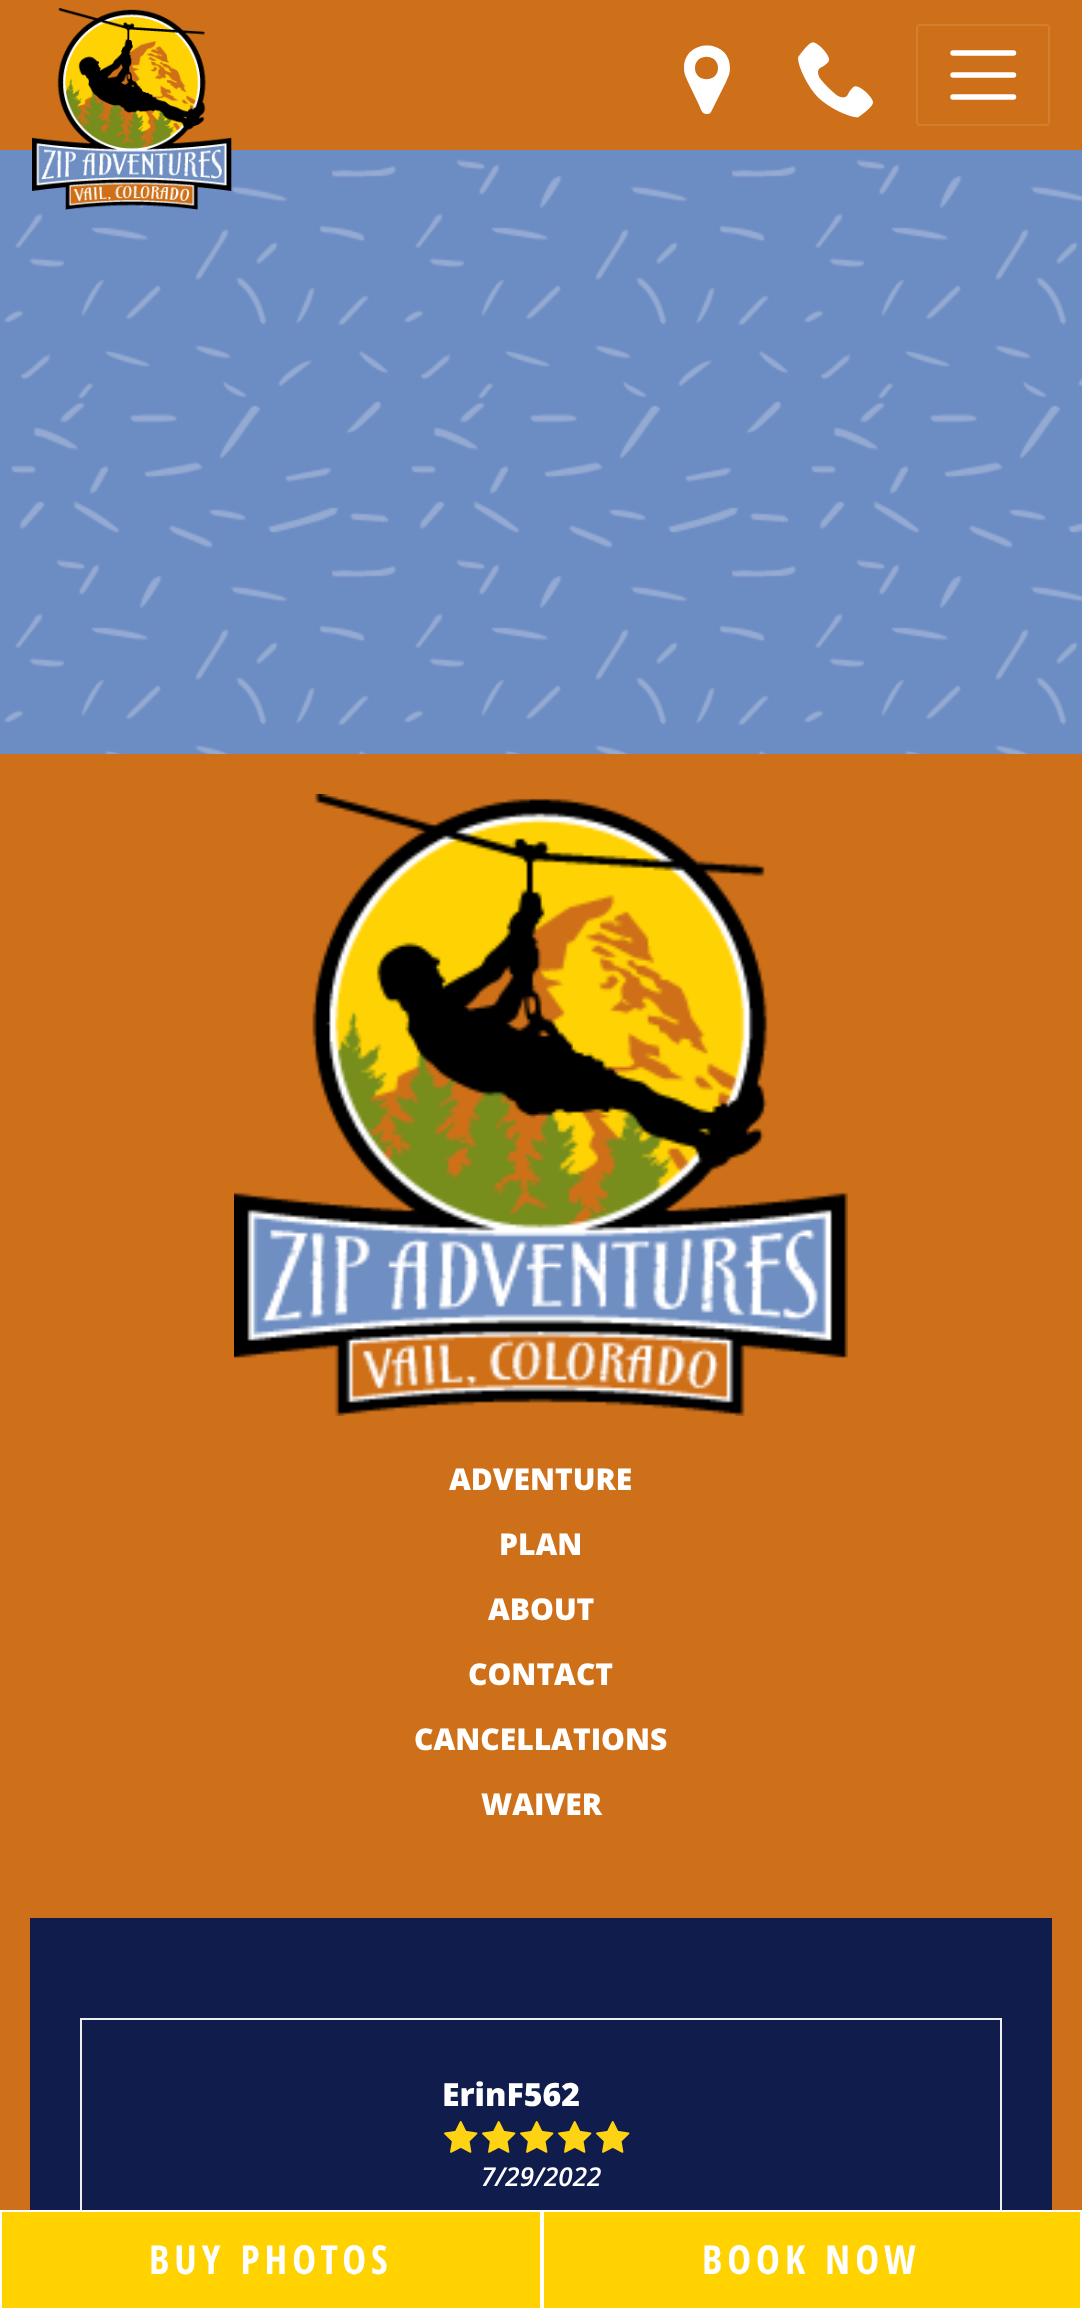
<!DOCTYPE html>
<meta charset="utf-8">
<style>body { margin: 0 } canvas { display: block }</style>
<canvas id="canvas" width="1082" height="2309"></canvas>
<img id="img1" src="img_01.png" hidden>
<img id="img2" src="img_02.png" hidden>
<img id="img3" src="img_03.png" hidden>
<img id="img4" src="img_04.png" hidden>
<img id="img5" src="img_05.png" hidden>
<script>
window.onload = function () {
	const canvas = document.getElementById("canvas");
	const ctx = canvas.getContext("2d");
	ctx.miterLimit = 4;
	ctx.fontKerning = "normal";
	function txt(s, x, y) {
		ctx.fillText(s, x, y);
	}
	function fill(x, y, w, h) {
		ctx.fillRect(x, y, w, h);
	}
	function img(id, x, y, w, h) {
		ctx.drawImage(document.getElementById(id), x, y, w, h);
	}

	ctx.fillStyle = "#FFFFFF";
	fill(0, 0, 1082, 2309);
	img("img1", 0, 150, 1082, 604);
	ctx.fillStyle = "#CE7019";
	fill(0, 754, 1082, 1456);
	img("img2", 234, 794, 614, 622);
	ctx.fillStyle = "#0F1C4C";
	fill(30, 1918, 1022, 292);
	ctx.strokeStyle = "#EEEEEE";
	ctx.lineWidth = 2;
	ctx.strokeRect(81, 2019, 920, 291);
	img("img3", 444, 2121, 34, 32);
	img("img3", 482, 2121, 34, 32);
	img("img3", 520, 2121, 34, 32);
	img("img3", 558, 2121, 34, 32);
	img("img3", 596, 2121, 34, 32);
	ctx.fillStyle = "#CE7019";
	fill(0, 0, 1082, 150);
	img("img4", 32, 8, 200, 202);
	ctx.fillStyle = "#FFFFFF";
	ctx.beginPath();
	ctx.moveTo(718, 68);
	ctx.bezierCurveTo(718, 53, 695, 53, 695, 68);
	ctx.bezierCurveTo(695, 83, 718, 83, 718, 68);
	ctx.closePath();
	ctx.moveTo(730, 68);
	ctx.bezierCurveTo(730, 74, 728, 77, 726, 82);
	ctx.lineTo(711, 112);
	ctx.bezierCurveTo(710, 113, 709, 114, 708, 114);
	ctx.bezierCurveTo(702, 115, 701, 109, 699, 105);
	ctx.lineTo(688, 82);
	ctx.bezierCurveTo(686, 77, 684, 74, 684, 68);
	ctx.bezierCurveTo(684, 38, 730, 38, 730, 68);
	ctx.closePath();
	ctx.fill();
	img("img5", 798, 42, 75, 76);
	ctx.beginPath();
	ctx.roundRect(917, 25, 132, 100, 3);
	ctx.strokeStyle = "#D37E30";
	ctx.stroke();
	ctx.beginPath();
	ctx.moveTo(953, 53);
	ctx.lineTo(1013.5, 53);
	ctx.moveTo(953, 75);
	ctx.lineTo(1013.5, 75);
	ctx.moveTo(953, 97);
	ctx.lineTo(1013.5, 97);
	ctx.strokeStyle = "#FFFFFF";
	ctx.lineWidth = 5.5;
	ctx.lineCap = "round";
	ctx.stroke();
	ctx.fillStyle = "#FFD200";
	ctx.beginPath();
	ctx.rect(1, 2211, 540, 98);
	ctx.fill();
	ctx.lineWidth = 2;
	ctx.stroke();
	ctx.beginPath();
	ctx.rect(543, 2211, 538, 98);
	ctx.fill();
	ctx.stroke();
	ctx.font = "800 30px Open Sans";
	ctx.fillStyle = "#FFFFFF";
	txt("ADVENTURE", 449, 1490);
	txt("PLAN", 499, 1555);
	txt("ABOUT", 488, 1620);
	txt("CONTACT", 468, 1685);
	txt("CANCELLATIONS", 414, 1750);
	txt("WAIVER", 481, 1815);
	ctx.font = "800 32px Open Sans";
	txt("ErinF562", 442, 2106);
	ctx.font = "italic 600 26px Open Sans";
	txt("7/29/2022", 481, 2186);
	ctx.letterSpacing = "5px";
	ctx.font = "bold 40px Open Sans Condensed";
	txt("BUY PHOTOS", 149, 2274);
	txt("BOOK NOW", 702, 2274);
};
</script>
